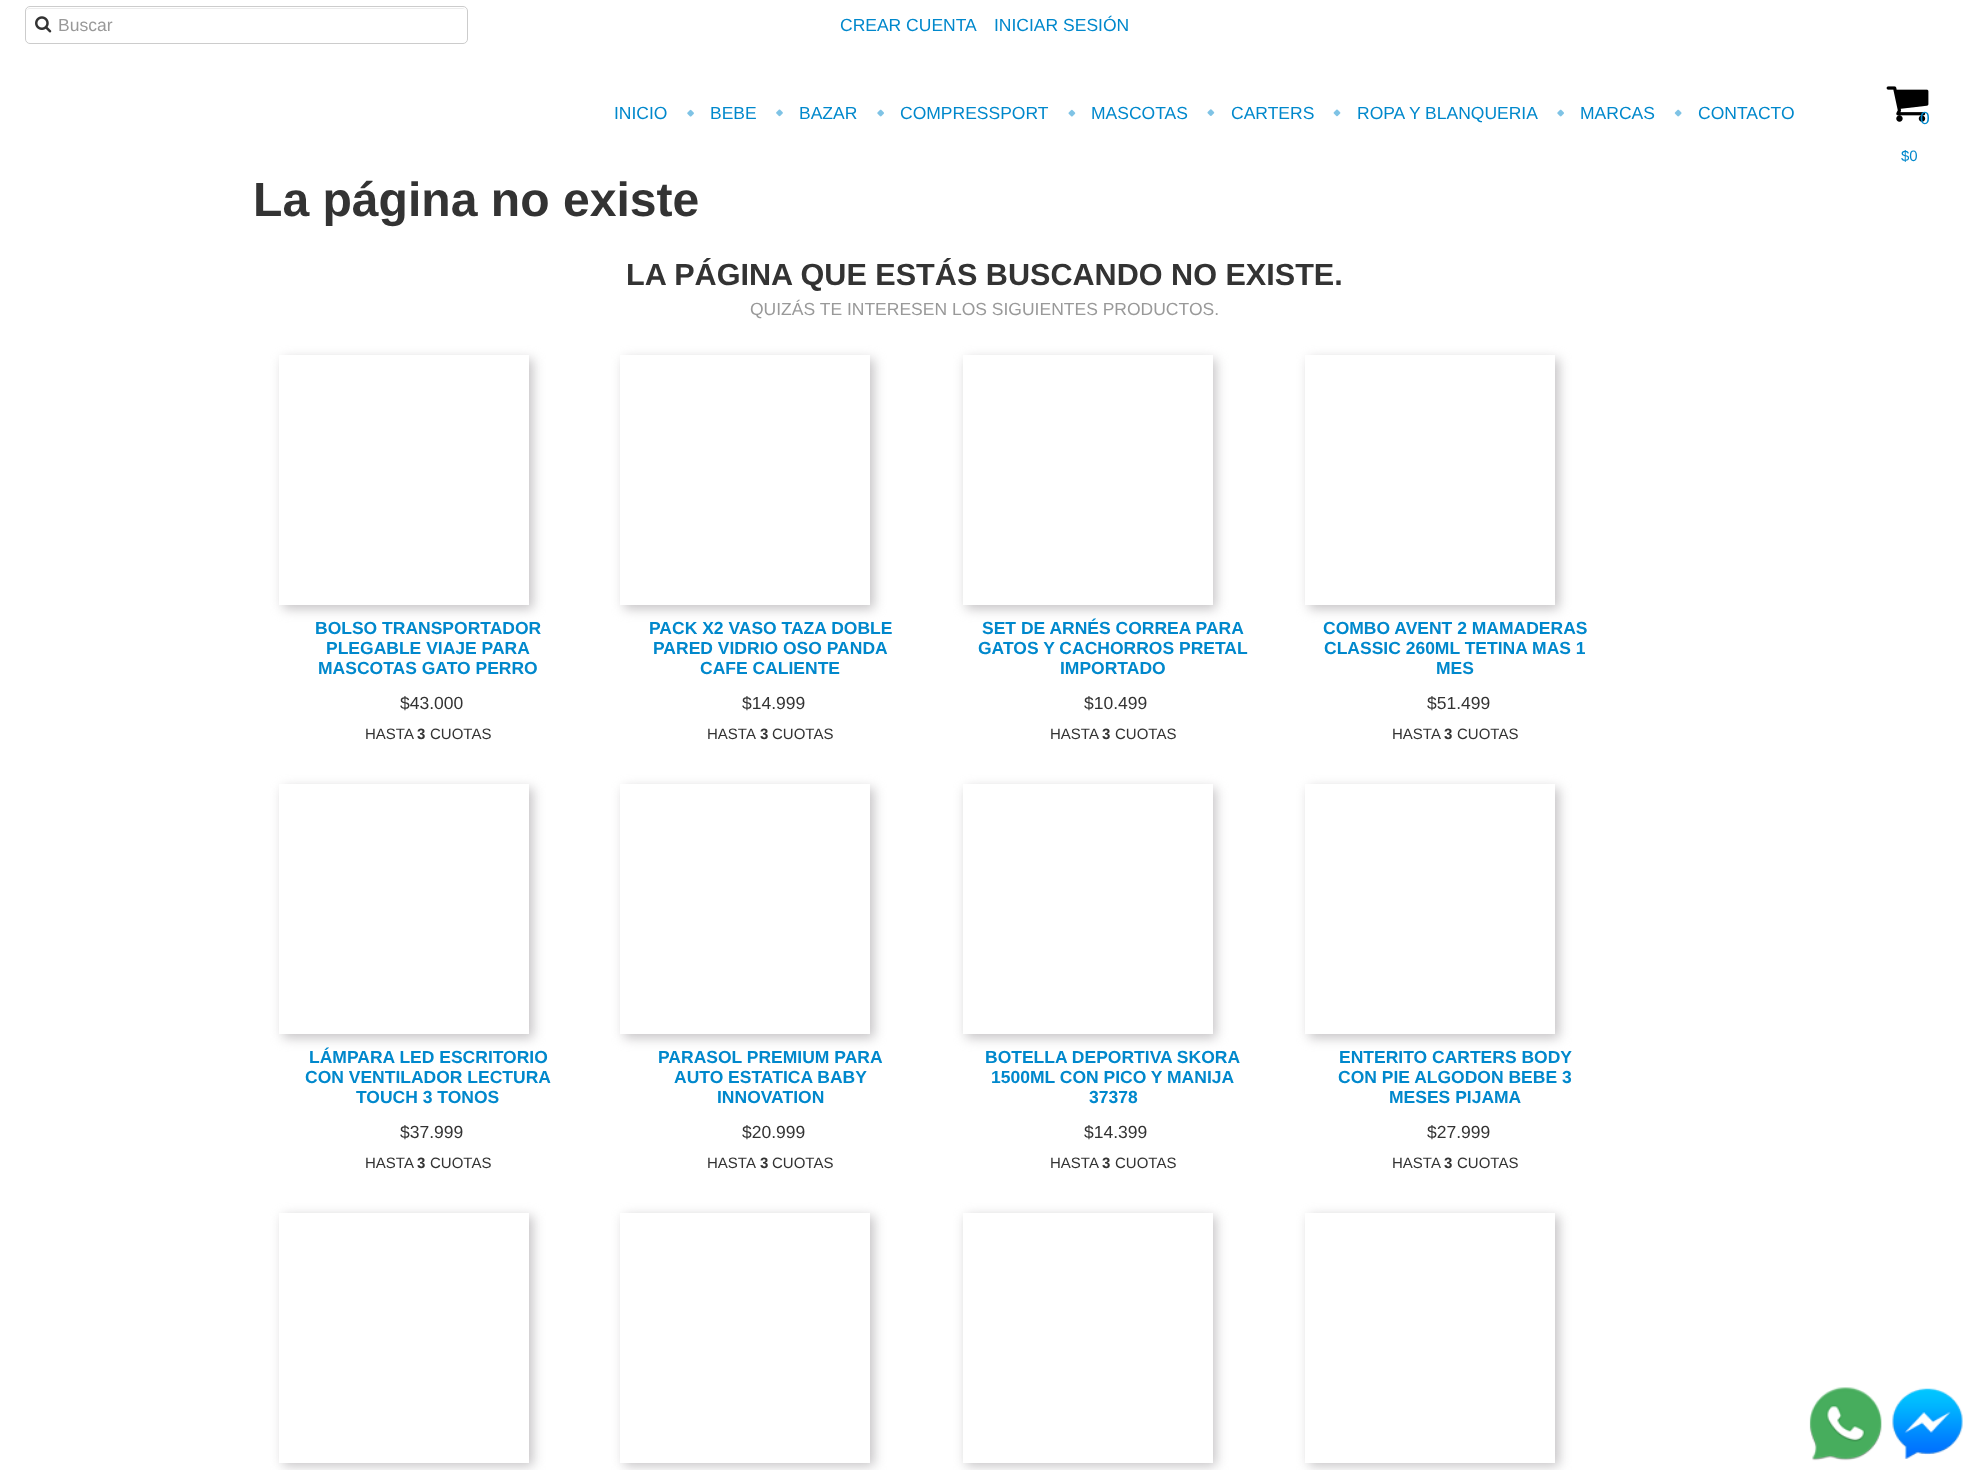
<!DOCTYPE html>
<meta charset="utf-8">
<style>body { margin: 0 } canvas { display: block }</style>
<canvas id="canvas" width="1968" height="1470"></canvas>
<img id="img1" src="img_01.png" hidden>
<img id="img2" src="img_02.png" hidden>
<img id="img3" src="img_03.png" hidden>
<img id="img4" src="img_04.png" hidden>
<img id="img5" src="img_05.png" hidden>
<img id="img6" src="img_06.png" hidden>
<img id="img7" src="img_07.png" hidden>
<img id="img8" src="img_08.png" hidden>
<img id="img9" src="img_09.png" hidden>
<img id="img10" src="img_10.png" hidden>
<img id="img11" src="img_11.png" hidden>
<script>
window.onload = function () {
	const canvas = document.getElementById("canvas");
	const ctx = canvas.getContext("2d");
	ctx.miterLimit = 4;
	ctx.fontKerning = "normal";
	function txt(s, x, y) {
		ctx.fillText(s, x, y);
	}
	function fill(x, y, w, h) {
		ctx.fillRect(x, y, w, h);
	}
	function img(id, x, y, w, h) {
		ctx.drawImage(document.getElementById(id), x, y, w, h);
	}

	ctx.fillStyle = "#FFFFFF";
	fill(0, 0, 1968, 1470);
	ctx.fillStyle = "#ECECEC";
	ctx.beginPath();
	ctx.moveTo(30, 9);
	ctx.lineTo(464, 9);
	ctx.lineTo(466, 10);
	ctx.bezierCurveTo(465, 9, 464, 8, 462, 8);
	ctx.lineTo(30, 8);
	ctx.bezierCurveTo(28, 8, 26, 10, 26, 12);
	ctx.bezierCurveTo(26, 10, 28, 9, 30, 9);
	ctx.closePath();
	ctx.fill();
	ctx.beginPath();
	ctx.roundRect(25.5, 6.5, 442, 37, 4.5);
	ctx.strokeStyle = "#CCCCCC";
	ctx.stroke();
	img("img1", 35, 16, 17, 17);
	img("img2", 687, 109, 7, 8);
	img("img3", 776, 109, 7, 8);
	img("img4", 877, 109, 7, 8);
	img("img5", 1068, 109, 8, 8);
	img("img6", 1207, 109, 8, 7);
	img("img7", 1333, 109, 8, 8);
	img("img4", 1557, 109, 7, 8);
	img("img8", 1674, 109, 8, 8);
	img("img9", 1886, 86, 43, 36);
	ctx.save();
	ctx.beginPath();
	ctx.moveTo(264, 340);
	ctx.lineTo(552, 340);
	ctx.lineTo(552, 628);
	ctx.lineTo(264, 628);
	ctx.closePath();
	ctx.moveTo(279, 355);
	ctx.lineTo(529, 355);
	ctx.lineTo(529, 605);
	ctx.lineTo(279, 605);
	ctx.closePath();
	ctx.clip("evenodd");
	ctx.fillStyle = "#C5C3C5";
	ctx.filter = "blur(6px)";
	ctx.beginPath();
	ctx.rect(283, 359, 250, 250);
	ctx.fill();
	ctx.filter = "none";
	ctx.restore();
	ctx.save();
	ctx.beginPath();
	ctx.moveTo(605, 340);
	ctx.lineTo(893, 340);
	ctx.lineTo(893, 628);
	ctx.lineTo(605, 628);
	ctx.closePath();
	ctx.moveTo(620, 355);
	ctx.lineTo(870, 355);
	ctx.lineTo(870, 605);
	ctx.lineTo(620, 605);
	ctx.closePath();
	ctx.clip("evenodd");
	ctx.fillStyle = "#C5C3C5";
	ctx.filter = "blur(6px)";
	ctx.beginPath();
	ctx.rect(624, 359, 250, 250);
	ctx.fill();
	ctx.filter = "none";
	ctx.restore();
	ctx.save();
	ctx.beginPath();
	ctx.moveTo(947, 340);
	ctx.lineTo(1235, 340);
	ctx.lineTo(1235, 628);
	ctx.lineTo(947, 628);
	ctx.closePath();
	ctx.moveTo(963, 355);
	ctx.lineTo(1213, 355);
	ctx.lineTo(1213, 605);
	ctx.lineTo(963, 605);
	ctx.closePath();
	ctx.clip("evenodd");
	ctx.fillStyle = "#C5C3C5";
	ctx.filter = "blur(6px)";
	ctx.beginPath();
	ctx.rect(966, 359, 250, 250);
	ctx.fill();
	ctx.filter = "none";
	ctx.restore();
	ctx.save();
	ctx.beginPath();
	ctx.moveTo(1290, 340);
	ctx.lineTo(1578, 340);
	ctx.lineTo(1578, 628);
	ctx.lineTo(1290, 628);
	ctx.closePath();
	ctx.moveTo(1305, 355);
	ctx.lineTo(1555, 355);
	ctx.lineTo(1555, 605);
	ctx.lineTo(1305, 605);
	ctx.closePath();
	ctx.clip("evenodd");
	ctx.fillStyle = "#C5C3C5";
	ctx.filter = "blur(6px)";
	ctx.beginPath();
	ctx.rect(1309, 359, 250, 250);
	ctx.fill();
	ctx.filter = "none";
	ctx.restore();
	ctx.save();
	ctx.beginPath();
	ctx.moveTo(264, 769);
	ctx.lineTo(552, 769);
	ctx.lineTo(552, 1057);
	ctx.lineTo(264, 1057);
	ctx.closePath();
	ctx.moveTo(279, 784);
	ctx.lineTo(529, 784);
	ctx.lineTo(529, 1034);
	ctx.lineTo(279, 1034);
	ctx.closePath();
	ctx.clip("evenodd");
	ctx.fillStyle = "#C5C3C5";
	ctx.filter = "blur(6px)";
	ctx.beginPath();
	ctx.rect(283, 788, 250, 250);
	ctx.fill();
	ctx.filter = "none";
	ctx.restore();
	ctx.save();
	ctx.beginPath();
	ctx.moveTo(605, 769);
	ctx.lineTo(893, 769);
	ctx.lineTo(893, 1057);
	ctx.lineTo(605, 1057);
	ctx.closePath();
	ctx.moveTo(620, 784);
	ctx.lineTo(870, 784);
	ctx.lineTo(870, 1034);
	ctx.lineTo(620, 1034);
	ctx.closePath();
	ctx.clip("evenodd");
	ctx.fillStyle = "#C5C3C5";
	ctx.filter = "blur(6px)";
	ctx.beginPath();
	ctx.rect(624, 788, 250, 250);
	ctx.fill();
	ctx.filter = "none";
	ctx.restore();
	ctx.save();
	ctx.beginPath();
	ctx.moveTo(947, 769);
	ctx.lineTo(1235, 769);
	ctx.lineTo(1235, 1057);
	ctx.lineTo(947, 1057);
	ctx.closePath();
	ctx.moveTo(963, 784);
	ctx.lineTo(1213, 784);
	ctx.lineTo(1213, 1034);
	ctx.lineTo(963, 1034);
	ctx.closePath();
	ctx.clip("evenodd");
	ctx.fillStyle = "#C5C3C5";
	ctx.filter = "blur(6px)";
	ctx.beginPath();
	ctx.rect(966, 788, 250, 250);
	ctx.fill();
	ctx.filter = "none";
	ctx.restore();
	ctx.save();
	ctx.beginPath();
	ctx.moveTo(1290, 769);
	ctx.lineTo(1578, 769);
	ctx.lineTo(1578, 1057);
	ctx.lineTo(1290, 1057);
	ctx.closePath();
	ctx.moveTo(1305, 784);
	ctx.lineTo(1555, 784);
	ctx.lineTo(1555, 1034);
	ctx.lineTo(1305, 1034);
	ctx.closePath();
	ctx.clip("evenodd");
	ctx.fillStyle = "#C5C3C5";
	ctx.filter = "blur(6px)";
	ctx.beginPath();
	ctx.rect(1309, 788, 250, 250);
	ctx.fill();
	ctx.filter = "none";
	ctx.restore();
	ctx.save();
	ctx.beginPath();
	ctx.moveTo(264, 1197);
	ctx.lineTo(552, 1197);
	ctx.lineTo(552, 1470);
	ctx.lineTo(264, 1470);
	ctx.closePath();
	ctx.moveTo(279, 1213);
	ctx.lineTo(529, 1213);
	ctx.lineTo(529, 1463);
	ctx.lineTo(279, 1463);
	ctx.closePath();
	ctx.clip("evenodd");
	ctx.fillStyle = "#C5C3C5";
	ctx.filter = "blur(6px)";
	ctx.beginPath();
	ctx.rect(283, 1216, 250, 250);
	ctx.fill();
	ctx.filter = "none";
	ctx.restore();
	ctx.save();
	ctx.beginPath();
	ctx.moveTo(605, 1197);
	ctx.lineTo(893, 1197);
	ctx.lineTo(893, 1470);
	ctx.lineTo(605, 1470);
	ctx.closePath();
	ctx.moveTo(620, 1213);
	ctx.lineTo(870, 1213);
	ctx.lineTo(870, 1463);
	ctx.lineTo(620, 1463);
	ctx.closePath();
	ctx.clip("evenodd");
	ctx.fillStyle = "#C5C3C5";
	ctx.filter = "blur(6px)";
	ctx.beginPath();
	ctx.rect(624, 1216, 250, 250);
	ctx.fill();
	ctx.filter = "none";
	ctx.restore();
	ctx.save();
	ctx.beginPath();
	ctx.moveTo(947, 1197);
	ctx.lineTo(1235, 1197);
	ctx.lineTo(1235, 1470);
	ctx.lineTo(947, 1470);
	ctx.closePath();
	ctx.moveTo(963, 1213);
	ctx.lineTo(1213, 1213);
	ctx.lineTo(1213, 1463);
	ctx.lineTo(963, 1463);
	ctx.closePath();
	ctx.clip("evenodd");
	ctx.fillStyle = "#C5C3C5";
	ctx.filter = "blur(6px)";
	ctx.beginPath();
	ctx.rect(966, 1216, 250, 250);
	ctx.fill();
	ctx.filter = "none";
	ctx.restore();
	ctx.save();
	ctx.beginPath();
	ctx.moveTo(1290, 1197);
	ctx.lineTo(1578, 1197);
	ctx.lineTo(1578, 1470);
	ctx.lineTo(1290, 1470);
	ctx.closePath();
	ctx.moveTo(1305, 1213);
	ctx.lineTo(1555, 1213);
	ctx.lineTo(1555, 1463);
	ctx.lineTo(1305, 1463);
	ctx.closePath();
	ctx.clip("evenodd");
	ctx.fillStyle = "#C5C3C5";
	ctx.filter = "blur(6px)";
	ctx.beginPath();
	ctx.rect(1309, 1216, 250, 250);
	ctx.fill();
	ctx.filter = "none";
	ctx.restore();
	img("img10", 1809, 1387, 73, 74);
	img("img11", 1892, 1388, 71, 71);
	ctx.font = "17.5px Liberation Sans";
	ctx.fillStyle = "#999999";
	txt("Buscar", 58, 31);
	ctx.fillStyle = "#0088CC";
	txt("CREAR CUENTA", 840, 31);
	txt("INICIAR SESIÓN", 994, 31);
	txt("INICIO", 614, 119);
	txt("BEBE", 710, 119);
	txt("BAZAR", 799, 119);
	txt("COMPRESSPORT", 900, 119);
	txt("MASCOTAS", 1091, 119);
	txt("CARTERS", 1231, 119);
	txt("ROPA Y BLANQUERIA", 1357, 119);
	txt("MARCAS", 1580, 119);
	txt("CONTACTO", 1698, 119);
	txt("0", 1920, 124);
	ctx.font = "15px Liberation Sans";
	txt("$0", 1901, 161);
	ctx.font = "bold 48.1px Liberation Sans";
	ctx.fillStyle = "#333333";
	txt("La página no existe", 253, 216);
	ctx.font = "bold 30.6px Liberation Sans";
	txt("LA PÁGINA QUE ESTÁS BUSCANDO NO EXISTE.", 626, 285);
	ctx.font = "17.5px Liberation Sans";
	ctx.fillStyle = "#999999";
	txt("QUIZÁS TE INTERESEN LOS SIGUIENTES PRODUCTOS.", 750, 315);
	ctx.font = "bold 17.5px Liberation Sans";
	ctx.fillStyle = "#0088CC";
	txt("BOLSO TRANSPORTADOR", 315, 634);
	txt("PLEGABLE VIAJE PARA", 326, 654);
	txt("MASCOTAS GATO PERRO", 318, 674);
	ctx.font = "17.5px Liberation Sans";
	ctx.fillStyle = "#333333";
	txt("$43.000", 400, 709);
	ctx.font = "15px Liberation Sans";
	txt("HASTA", 365, 739);
	ctx.font = "bold 15px Liberation Sans";
	txt("3", 417, 739);
	ctx.font = "15px Liberation Sans";
	txt("CUOTAS", 430, 739);
	ctx.font = "bold 17.5px Liberation Sans";
	ctx.fillStyle = "#0088CC";
	txt("PACK X2 VASO TAZA DOBLE", 649, 634);
	txt("PARED VIDRIO OSO PANDA", 653, 654);
	txt("CAFE CALIENTE", 700, 674);
	ctx.font = "17.5px Liberation Sans";
	ctx.fillStyle = "#333333";
	txt("$14.999", 742, 709);
	ctx.font = "15px Liberation Sans";
	txt("HASTA", 707, 739);
	ctx.font = "bold 15px Liberation Sans";
	txt("3", 760, 739);
	ctx.font = "15px Liberation Sans";
	txt("CUOTAS", 772, 739);
	ctx.font = "bold 17.5px Liberation Sans";
	ctx.fillStyle = "#0088CC";
	txt("SET DE ARNÉS CORREA PARA", 982, 634);
	txt("GATOS Y CACHORROS PRETAL", 978, 654);
	txt("IMPORTADO", 1060, 674);
	ctx.font = "17.5px Liberation Sans";
	ctx.fillStyle = "#333333";
	txt("$10.499", 1084, 709);
	ctx.font = "15px Liberation Sans";
	txt("HASTA", 1050, 739);
	ctx.font = "bold 15px Liberation Sans";
	txt("3", 1102, 739);
	ctx.font = "15px Liberation Sans";
	txt("CUOTAS", 1115, 739);
	ctx.font = "bold 17.5px Liberation Sans";
	ctx.fillStyle = "#0088CC";
	txt("COMBO AVENT 2 MAMADERAS", 1323, 634);
	txt("CLASSIC 260ML TETINA MAS 1", 1324, 654);
	txt("MES", 1436, 674);
	ctx.font = "17.5px Liberation Sans";
	ctx.fillStyle = "#333333";
	txt("$51.499", 1427, 709);
	ctx.font = "15px Liberation Sans";
	txt("HASTA", 1392, 739);
	ctx.font = "bold 15px Liberation Sans";
	txt("3", 1444, 739);
	ctx.font = "15px Liberation Sans";
	txt("CUOTAS", 1457, 739);
	ctx.font = "bold 17.5px Liberation Sans";
	ctx.fillStyle = "#0088CC";
	txt("LÁMPARA LED ESCRITORIO", 309, 1063);
	txt("CON VENTILADOR LECTURA", 305, 1083);
	txt("TOUCH 3 TONOS", 356, 1103);
	ctx.font = "17.5px Liberation Sans";
	ctx.fillStyle = "#333333";
	txt("$37.999", 400, 1138);
	ctx.font = "15px Liberation Sans";
	txt("HASTA", 365, 1168);
	ctx.font = "bold 15px Liberation Sans";
	txt("3", 417, 1168);
	ctx.font = "15px Liberation Sans";
	txt("CUOTAS", 430, 1168);
	ctx.font = "bold 17.5px Liberation Sans";
	ctx.fillStyle = "#0088CC";
	txt("PARASOL PREMIUM PARA", 658, 1063);
	txt("AUTO ESTATICA BABY", 674, 1083);
	txt("INNOVATION", 717, 1103);
	ctx.font = "17.5px Liberation Sans";
	ctx.fillStyle = "#333333";
	txt("$20.999", 742, 1138);
	ctx.font = "15px Liberation Sans";
	txt("HASTA", 707, 1168);
	ctx.font = "bold 15px Liberation Sans";
	txt("3", 760, 1168);
	ctx.font = "15px Liberation Sans";
	txt("CUOTAS", 772, 1168);
	ctx.font = "bold 17.5px Liberation Sans";
	ctx.fillStyle = "#0088CC";
	txt("BOTELLA DEPORTIVA SKORA", 985, 1063);
	txt("1500ML CON PICO Y MANIJA", 991, 1083);
	txt("37378", 1089, 1103);
	ctx.font = "17.5px Liberation Sans";
	ctx.fillStyle = "#333333";
	txt("$14.399", 1084, 1138);
	ctx.font = "15px Liberation Sans";
	txt("HASTA", 1050, 1168);
	ctx.font = "bold 15px Liberation Sans";
	txt("3", 1102, 1168);
	ctx.font = "15px Liberation Sans";
	txt("CUOTAS", 1115, 1168);
	ctx.font = "bold 17.5px Liberation Sans";
	ctx.fillStyle = "#0088CC";
	txt("ENTERITO CARTERS BODY", 1339, 1063);
	txt("CON PIE ALGODON BEBE 3", 1338, 1083);
	txt("MESES PIJAMA", 1389, 1103);
	ctx.font = "17.5px Liberation Sans";
	ctx.fillStyle = "#333333";
	txt("$27.999", 1427, 1138);
	ctx.font = "15px Liberation Sans";
	txt("HASTA", 1392, 1168);
	ctx.font = "bold 15px Liberation Sans";
	txt("3", 1444, 1168);
	ctx.font = "15px Liberation Sans";
	txt("CUOTAS", 1457, 1168);
};
</script>
